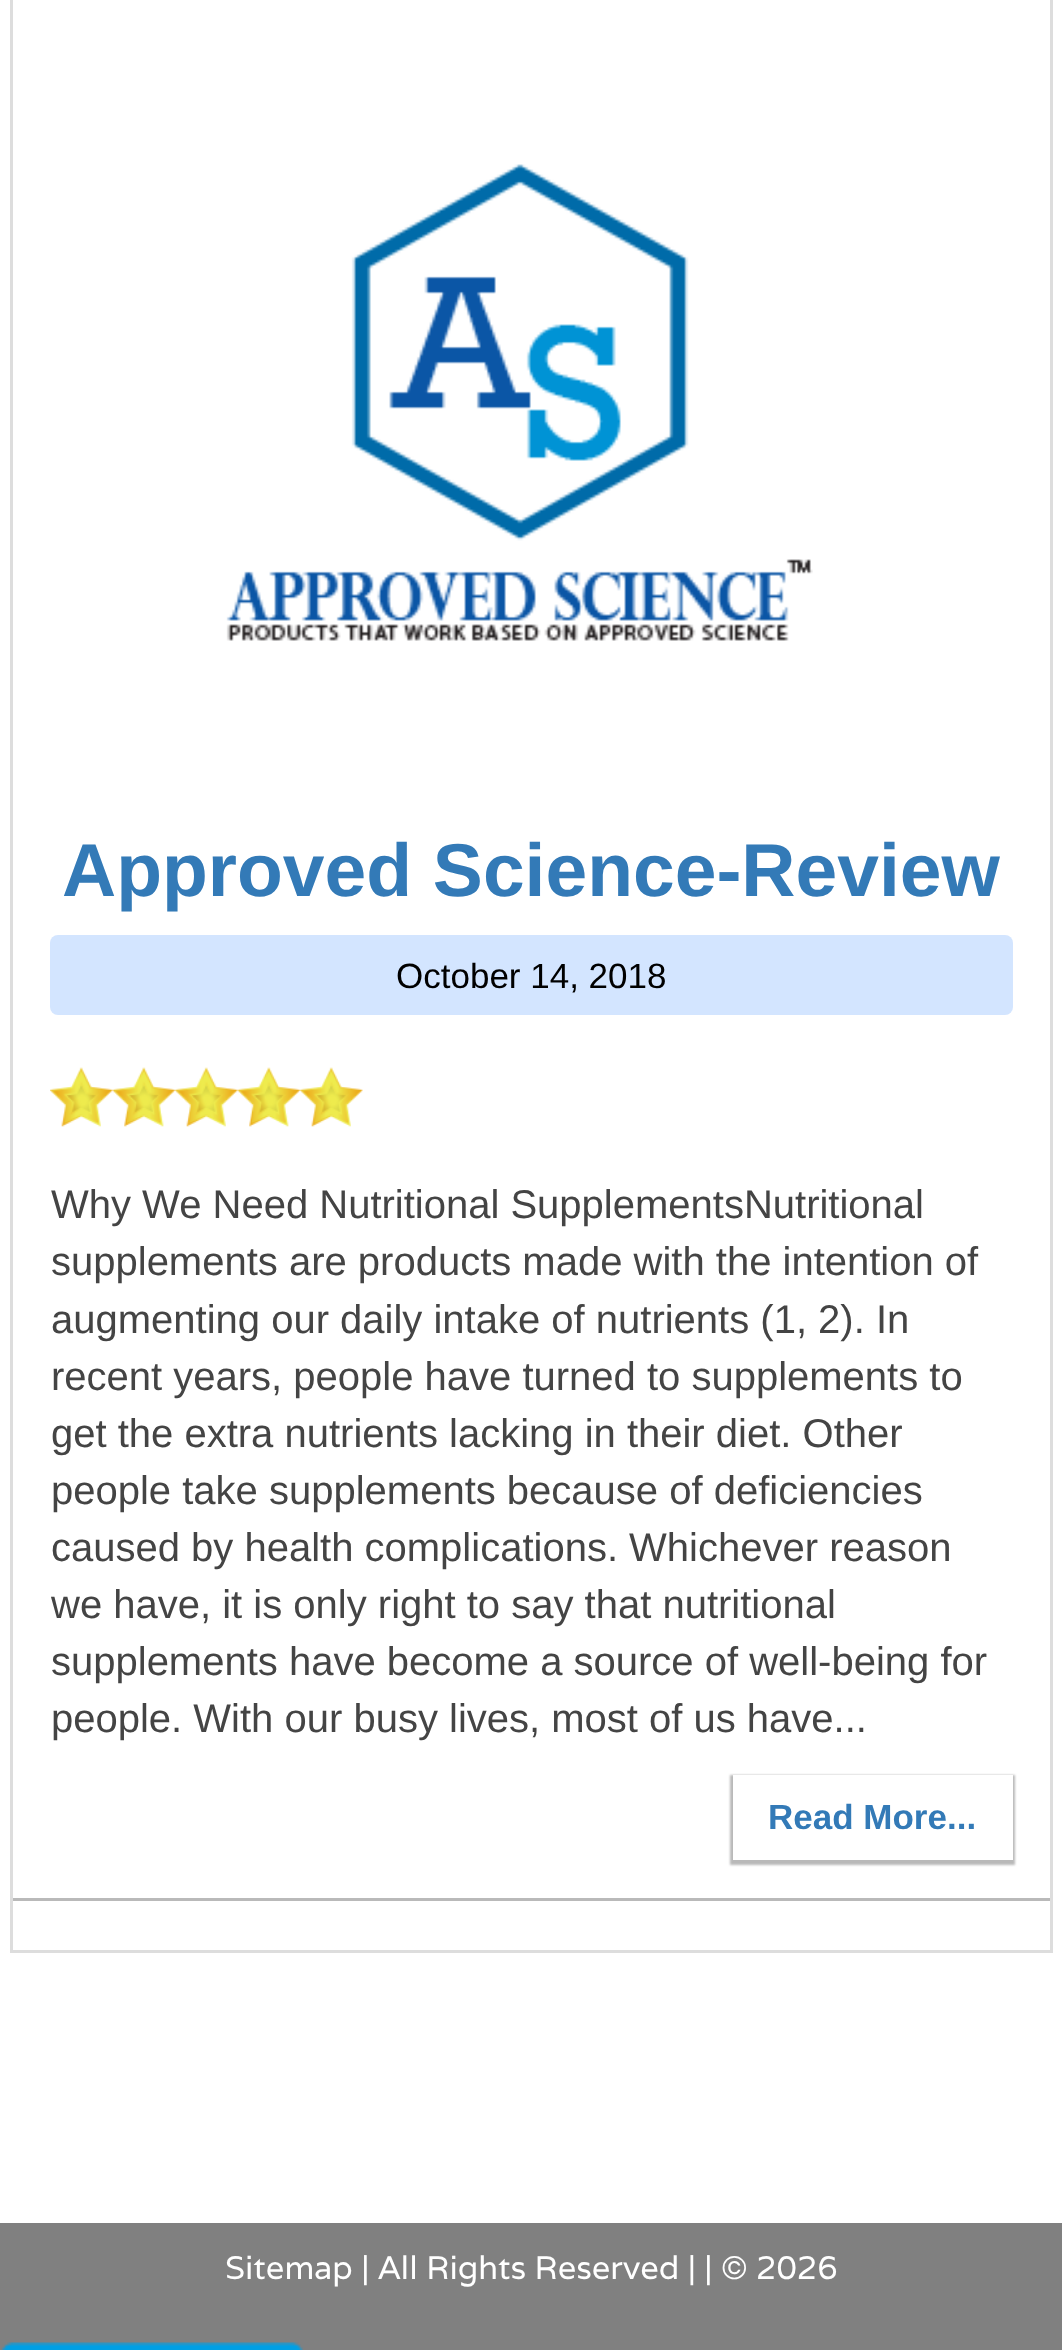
<!DOCTYPE html>
<meta charset="utf-8">
<style>body { margin: 0 } canvas { display: block }</style>
<canvas id="canvas" width="1062" height="2350"></canvas>
<img id="img1" src="img_01.png" hidden>
<img id="img2" src="img_02.png" hidden>
<img id="img3" src="img_03.png" hidden>
<img id="img4" src="img_04.png" hidden>
<script>
window.onload = function () {
	const canvas = document.getElementById("canvas");
	const ctx = canvas.getContext("2d");
	ctx.miterLimit = 4;
	ctx.fontKerning = "normal";
	function txt(s, x, y) {
		ctx.fillText(s, x, y);
	}
	function fill(x, y, w, h) {
		ctx.fillRect(x, y, w, h);
	}
	function round(x, y, w, h, r) {
		ctx.beginPath();
		ctx.roundRect(x, y, w, h, r);
		ctx.fill();
	}
	function img(id, x, y, w, h) {
		ctx.drawImage(document.getElementById(id), x, y, w, h);
	}

	ctx.fillStyle = "#FFFFFF";
	fill(0, 0, 1062, 2350);
	ctx.strokeStyle = "#DDDDDD";
	ctx.lineWidth = 3;
	ctx.strokeRect(11.5, -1.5, 1040, 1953);
	ctx.fillStyle = "#B9B9B9";
	fill(13, 1898, 1037, 3);
	img("img1", 226, 164, 587, 477);
	ctx.fillStyle = "#D3E5FF";
	round(50, 935, 963, 80, 8);
	img("img2", 50, 1067, 63, 60);
	img("img3", 112, 1067, 63, 60);
	img("img2", 175, 1067, 63, 60);
	img("img3", 237, 1067, 63, 60);
	img("img2", 300, 1067, 63, 60);
	ctx.save();
	ctx.beginPath();
	ctx.moveTo(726, 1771);
	ctx.lineTo(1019, 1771);
	ctx.lineTo(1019, 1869);
	ctx.lineTo(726, 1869);
	ctx.closePath();
	ctx.moveTo(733, 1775);
	ctx.lineTo(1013, 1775);
	ctx.lineTo(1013, 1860);
	ctx.lineTo(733, 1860);
	ctx.closePath();
	ctx.clip("evenodd");
	ctx.fillStyle = "#B9B9B9";
	ctx.filter = "blur(1px)";
	ctx.beginPath();
	ctx.rect(730, 1775, 285, 90);
	ctx.fill();
	ctx.filter = "none";
	ctx.restore();
	ctx.fillStyle = "#808080";
	fill(0, 2223, 1062, 127);
	img("img4", 1, 2342, 302, 8);
	ctx.font = "bold 75px Liberation Sans";
	ctx.fillStyle = "#337AB7";
	txt("Approved Science-Review", 62, 896);
	ctx.font = "35px Liberation Sans";
	ctx.fillStyle = "#000000";
	txt("October 14, 2018", 396, 988);
	ctx.font = "40px Liberation Sans";
	ctx.fillStyle = "#444444";
	txt("Why We Need Nutritional SupplementsNutritional", 51, 1218);
	txt("supplements are products made with the intention of", 51, 1275);
	txt("augmenting our daily intake of nutrients (1, 2). In", 51, 1333);
	txt("recent years, people have turned to supplements to", 51, 1390);
	txt("get the extra nutrients lacking in their diet. Other", 51, 1447);
	txt("people take supplements because of deficiencies", 51, 1504);
	txt("caused by health complications. Whichever reason", 51, 1561);
	txt("we have, it is only right to say that nutritional", 51, 1618);
	txt("supplements have become a source of well-being for", 51, 1675);
	txt("people. With our busy lives, most of us have...", 51, 1732);
	ctx.font = "bold 35px Liberation Sans";
	ctx.fillStyle = "#337AB7";
	txt("Read More...", 768, 1829);
	ctx.font = "32.5px Varela";
	ctx.fillStyle = "#FFFFFF";
	txt("Sitemap | All Rights Reserved | | © 2026", 225, 2279);
};
</script>
